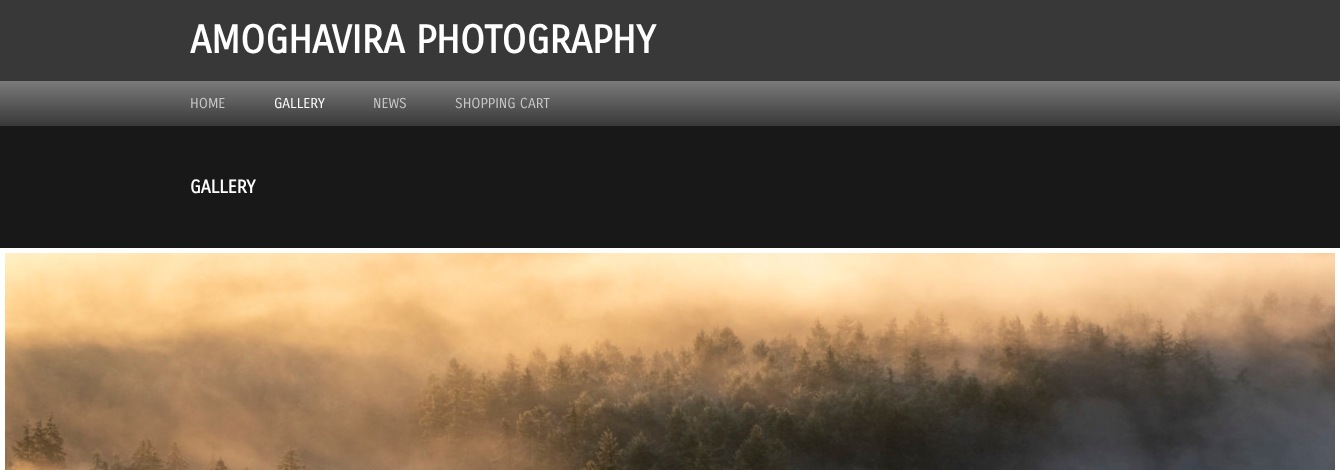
<!DOCTYPE html>
<meta charset="utf-8">
<style>body { margin: 0 } canvas { display: block }</style>
<canvas id="canvas" width="1340" height="470"></canvas>
<img id="img1" src="img_01.png" hidden>
<script>
window.onload = function () {
	const canvas = document.getElementById("canvas");
	const ctx = canvas.getContext("2d");
	ctx.miterLimit = 4;
	ctx.fontKerning = "normal";
	function txt(s, x, y) {
		ctx.fillText(s, x, y);
	}
	function fill(x, y, w, h) {
		ctx.fillRect(x, y, w, h);
	}
	function img(id, x, y, w, h) {
		ctx.drawImage(document.getElementById(id), x, y, w, h);
	}
	let gradient;

	ctx.fillStyle = "#181818";
	fill(0, 0, 1340, 470);
	ctx.fillStyle = "#393838";
	fill(0, 0, 1340, 81);
	gradient = ctx.createLinearGradient(670, 81, 670, 126);
	gradient.addColorStop(0, "#7B7B7B");
	gradient.addColorStop(1, "#393838");
	ctx.fillStyle = gradient;
	fill(0, 81, 1340, 45);
	ctx.strokeStyle = "#FFFFFF";
	ctx.lineWidth = 5;
	ctx.strokeRect(2.5, 250.5, 1335, 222);
	img("img1", 5, 253, 1330, 217);
	ctx.font = "bold 38.4px Carrois Gothic";
	ctx.fillStyle = "#FFFFFF";
	txt("AMOGHAVIRA PHOTOGRAPHY", 190, 53);
	ctx.font = "14px Carrois Gothic";
	ctx.fillStyle = "#C8C8C8";
	txt("HOME", 190, 108);
	ctx.fillStyle = "#FFFFFF";
	txt("GALLERY", 274, 108);
	ctx.fillStyle = "#C8C8C8";
	txt("NEWS", 373, 108);
	txt("SHOPPING CART", 455, 108);
	ctx.font = "bold 18px Carrois Gothic";
	ctx.fillStyle = "#FFFFFF";
	txt("GALLERY", 190, 193);
};
</script>
